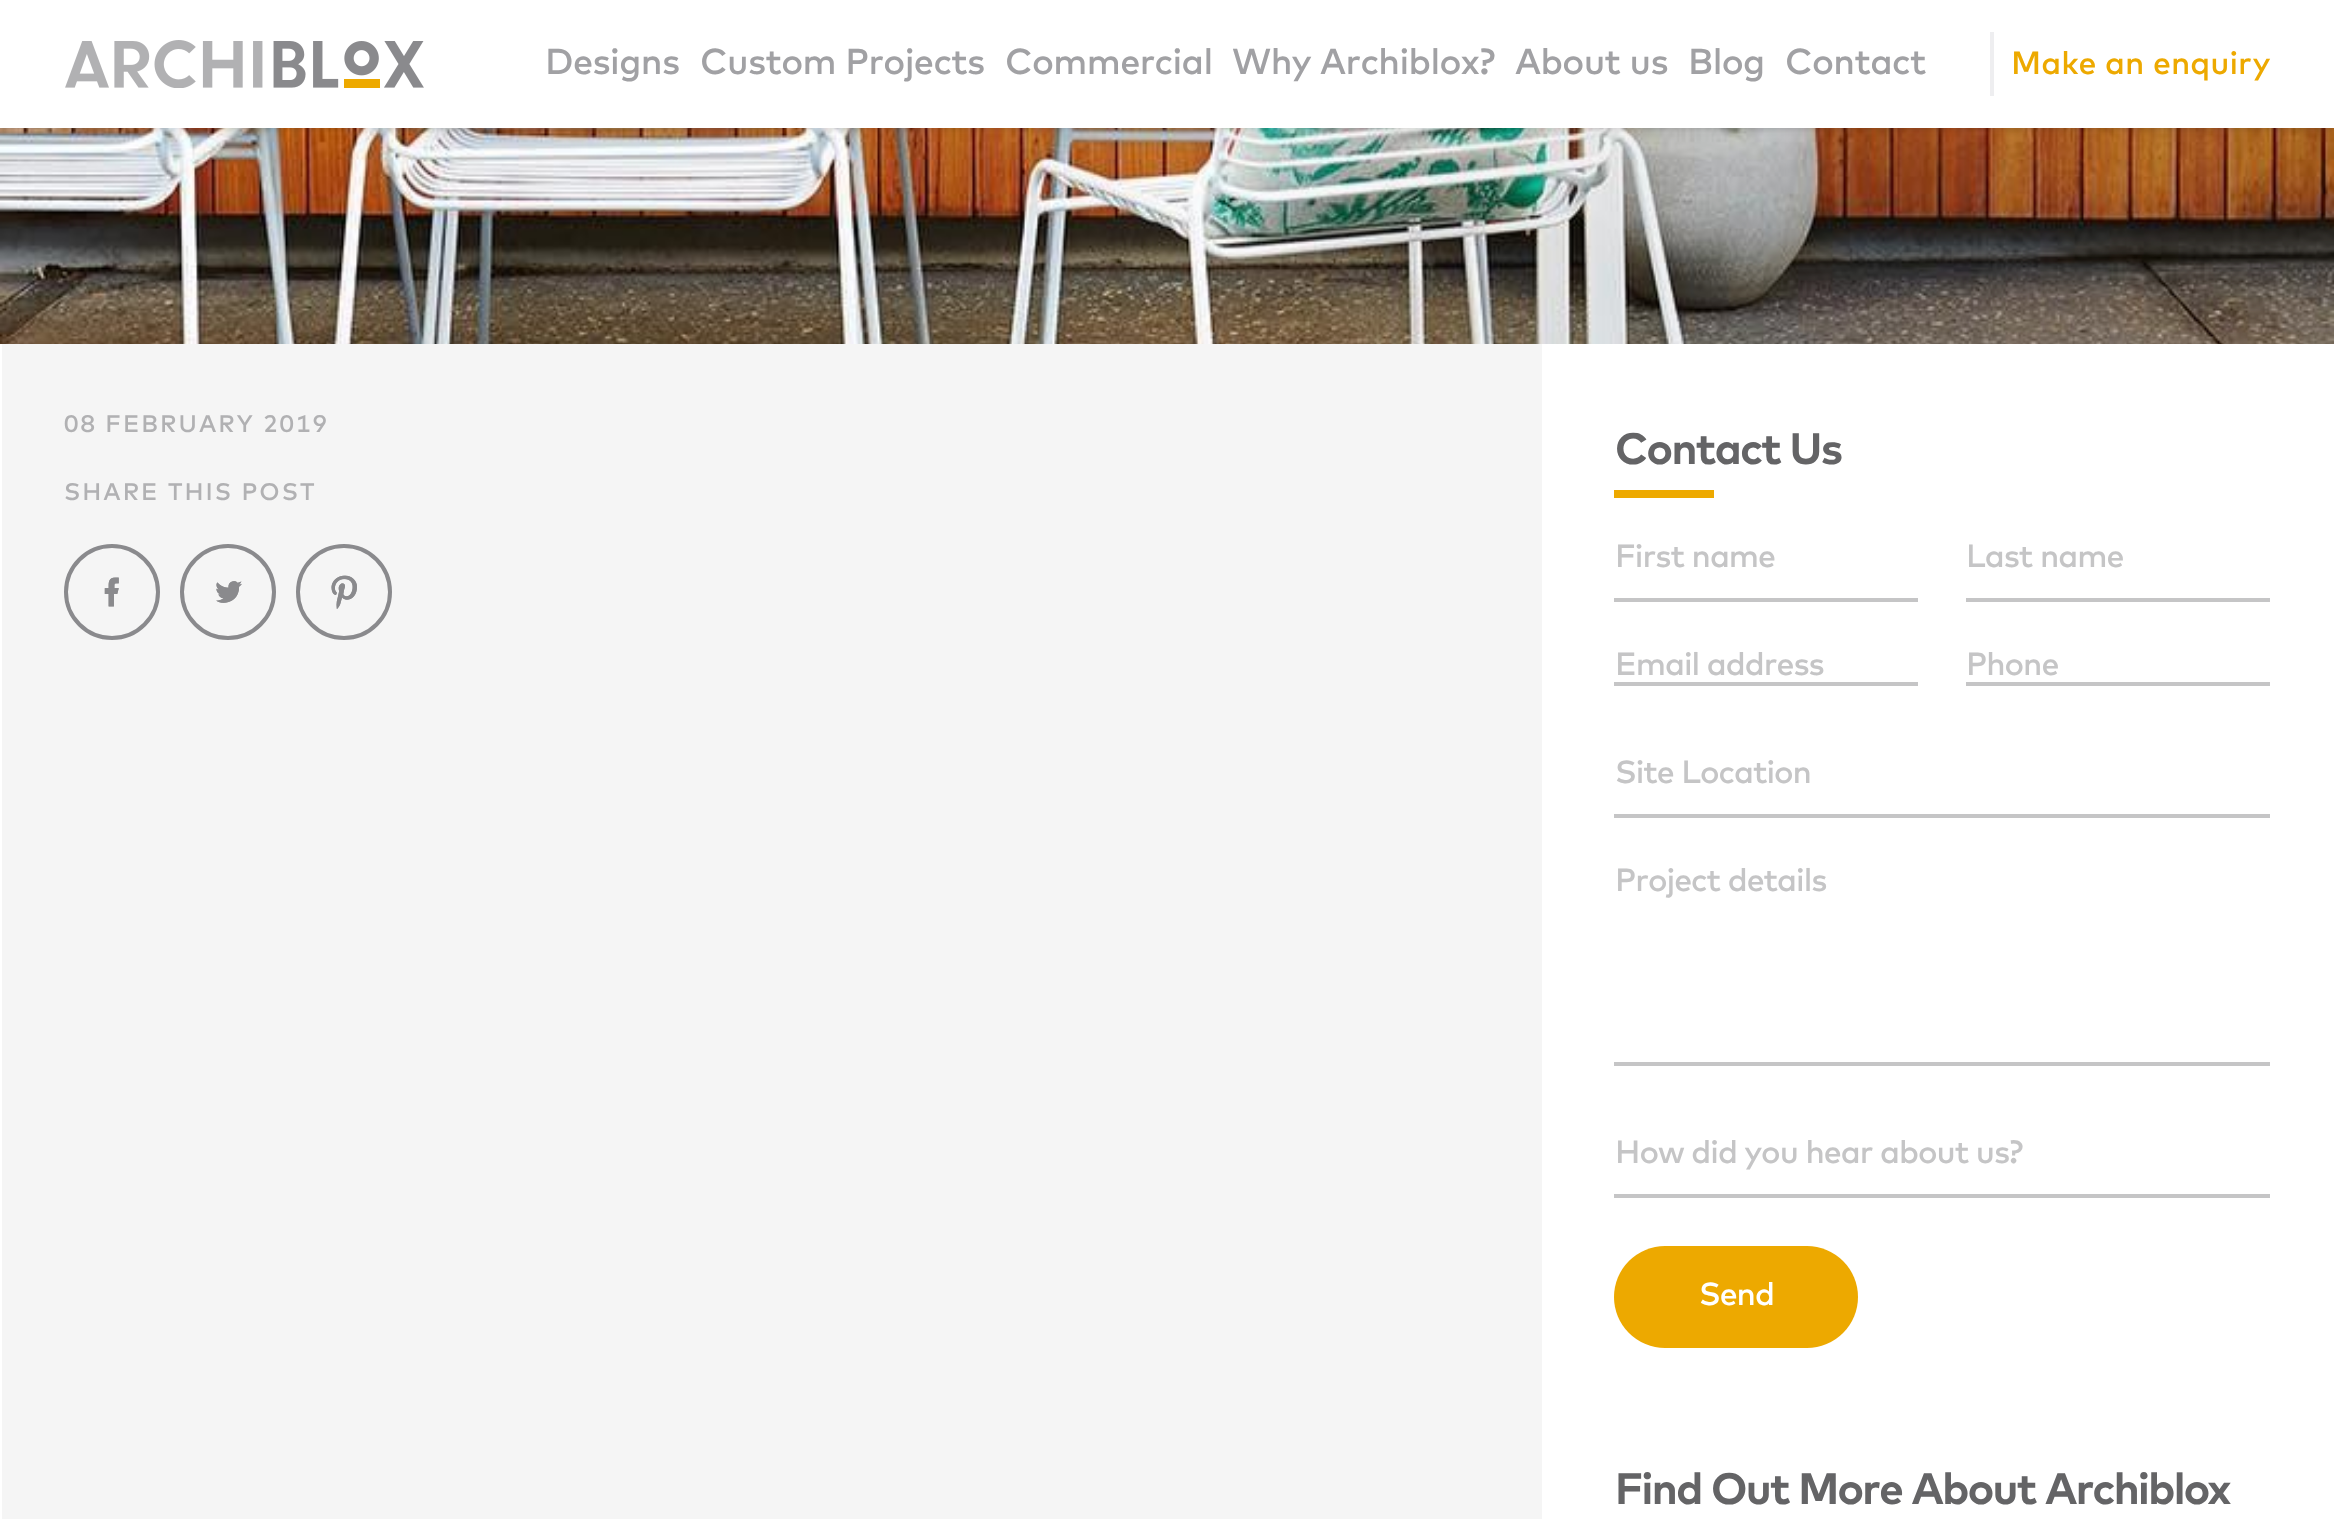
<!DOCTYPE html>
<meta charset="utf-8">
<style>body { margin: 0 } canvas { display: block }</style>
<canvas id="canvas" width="2334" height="1519"></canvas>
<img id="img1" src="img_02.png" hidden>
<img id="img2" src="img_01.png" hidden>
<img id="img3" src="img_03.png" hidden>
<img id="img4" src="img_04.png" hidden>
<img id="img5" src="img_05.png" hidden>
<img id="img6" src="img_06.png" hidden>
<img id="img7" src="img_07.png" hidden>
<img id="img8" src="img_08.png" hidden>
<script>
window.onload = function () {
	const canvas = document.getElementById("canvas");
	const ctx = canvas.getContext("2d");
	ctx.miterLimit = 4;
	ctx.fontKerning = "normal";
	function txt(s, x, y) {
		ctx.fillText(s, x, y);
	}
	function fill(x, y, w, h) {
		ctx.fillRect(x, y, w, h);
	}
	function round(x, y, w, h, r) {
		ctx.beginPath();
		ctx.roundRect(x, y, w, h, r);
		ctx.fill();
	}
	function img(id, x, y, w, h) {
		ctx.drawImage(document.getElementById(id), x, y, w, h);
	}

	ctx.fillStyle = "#FFFFFF";
	fill(0, 0, 2334, 1519);
	img("img1", 0, 128, 2334, 216);
	ctx.fillStyle = "rgba(24, 24, 26, 0.15)";
	ctx.filter = "blur(3px)";
	ctx.beginPath();
	ctx.rect(0, 2, 2334, 128);
	ctx.fill();
	ctx.filter = "none";
	ctx.fillStyle = "#FFFFFF";
	fill(0, 0, 2334, 128);
	img("img2", 65, 40, 359, 48);
	ctx.fillStyle = "#EEEEF0";
	fill(1990, 32, 4, 64);
	ctx.fillStyle = "#F5F5F5";
	fill(2, 344, 1540, 1175);
	ctx.beginPath();
	ctx.arc(112, 592, 46, 0, Math.PI * 2);
	ctx.strokeStyle = "#8A8A8D";
	ctx.lineWidth = 4;
	ctx.stroke();
	img("img3", 104, 577, 15, 30);
	img("img4", 104, 577, 15, 30);
	ctx.beginPath();
	ctx.arc(228, 592, 46, 0, Math.PI * 2);
	ctx.stroke();
	img("img5", 216, 581, 26, 22);
	img("img6", 216, 581, 26, 22);
	ctx.beginPath();
	ctx.arc(344, 592, 46, 0, Math.PI * 2);
	ctx.stroke();
	img("img7", 331, 575, 26, 34);
	img("img8", 331, 575, 26, 34);
	ctx.fillStyle = "#EDA900";
	fill(1614, 490, 100, 8);
	ctx.fillStyle = "#C5C5C6";
	fill(1614, 598, 304, 4);
	fill(1966, 598, 304, 4);
	fill(1614, 682, 304, 4);
	fill(1966, 682, 304, 4);
	fill(1614, 814, 656, 4);
	fill(1614, 1062, 656, 4);
	fill(1614, 1194, 656, 4);
	ctx.fillStyle = "#EDA900";
	round(1614, 1246, 244, 102, 51);
	ctx.letterSpacing = "-0.6px";
	ctx.font = "36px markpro";
	ctx.fillStyle = "#A1A1A4";
	txt("Designs", 545, 74);
	txt("Custom Projects", 700, 74);
	txt("Commercial", 1005, 74);
	txt("Why Archiblox?", 1232, 74);
	txt("About us", 1515, 74);
	txt("Blog", 1688, 74);
	txt("Contact", 1785, 74);
	ctx.letterSpacing = "0px";
	ctx.font = "32px markpro";
	ctx.fillStyle = "#EDA900";
	txt("Make an enquiry", 2011, 74);
	ctx.letterSpacing = "2px";
	ctx.font = "24px markpro";
	ctx.fillStyle = "#B1B1B3";
	txt("08 FEBRUARY 2019", 64, 432);
	txt("SHARE THIS POST", 64, 500);
	ctx.letterSpacing = "-1.6px";
	ctx.font = "44px 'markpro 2'";
	ctx.fillStyle = "#646466";
	txt("Contact Us", 1615, 464);
	ctx.letterSpacing = "-1px";
	ctx.font = "32px markpro";
	ctx.fillStyle = "#C5C5C6";
	txt("First name", 1615, 567);
	txt("Last name", 1966, 567);
	txt("Email address", 1615, 675);
	txt("Phone", 1966, 675);
	txt("Site Location", 1615, 783);
	txt("Project details", 1615, 891);
	txt("How did you hear about us?", 1615, 1163);
	ctx.fillStyle = "#FFFFFF";
	txt("Send", 1699, 1305);
	ctx.letterSpacing = "-1.6px";
	ctx.font = "44px 'markpro 2'";
	ctx.fillStyle = "#646466";
	txt("Find Out More About Archiblox", 1615, 1504);
};
</script>
